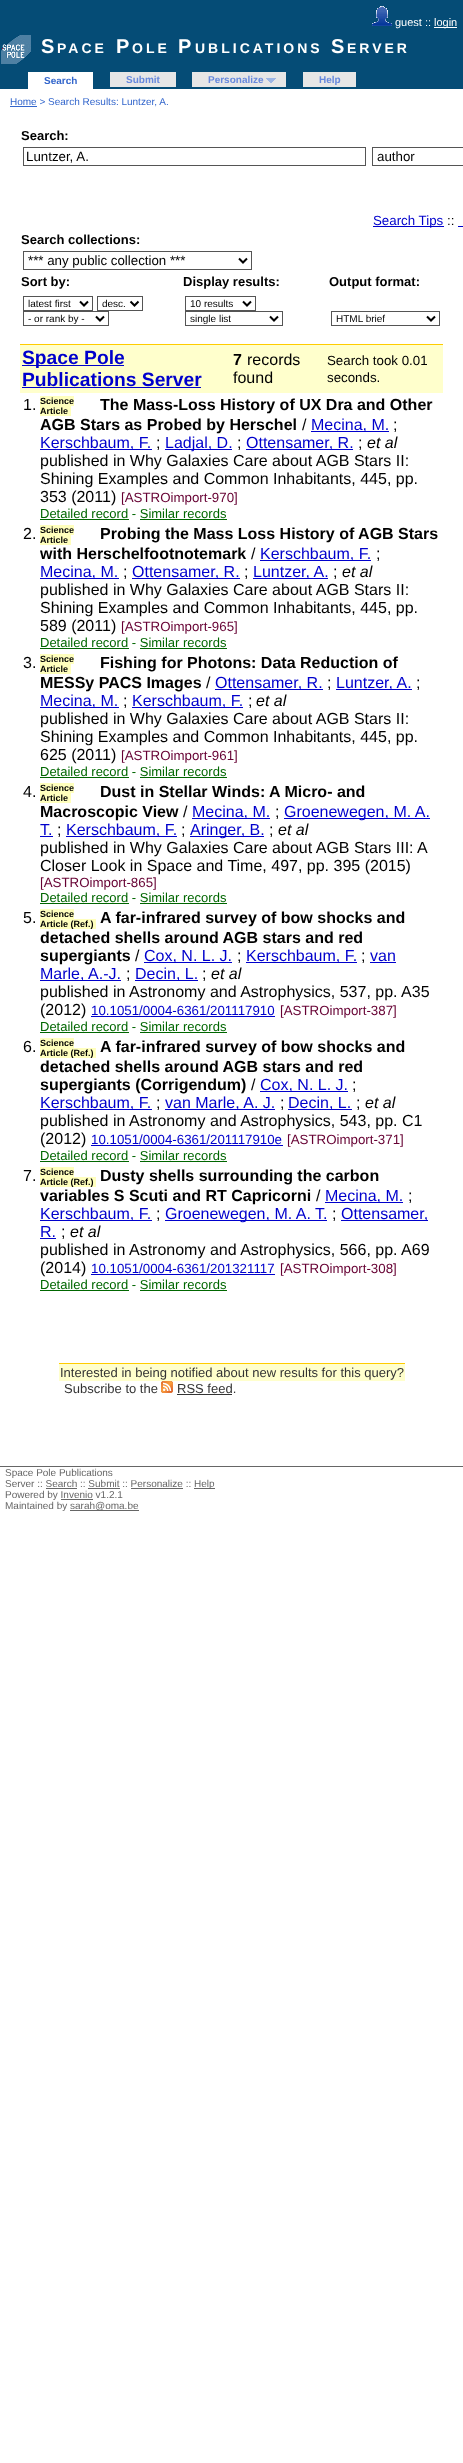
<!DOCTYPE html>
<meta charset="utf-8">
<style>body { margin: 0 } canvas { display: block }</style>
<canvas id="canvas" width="463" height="2463"></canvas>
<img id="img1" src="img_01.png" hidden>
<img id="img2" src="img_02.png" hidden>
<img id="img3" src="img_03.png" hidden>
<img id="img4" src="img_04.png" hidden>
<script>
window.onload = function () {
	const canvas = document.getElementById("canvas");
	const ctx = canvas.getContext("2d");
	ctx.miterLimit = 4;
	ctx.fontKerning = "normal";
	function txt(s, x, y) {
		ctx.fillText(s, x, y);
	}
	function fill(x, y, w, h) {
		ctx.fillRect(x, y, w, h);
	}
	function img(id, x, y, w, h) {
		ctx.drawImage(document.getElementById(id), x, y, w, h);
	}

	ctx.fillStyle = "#FFFFFF";
	fill(0, 0, 463, 2463);
	ctx.fillStyle = "#054C76";
	fill(0, 0, 463, 89);
	img("img1", 372, 6, 20, 20);
	ctx.fillStyle = "#FFFFFF";
	fill(434, 27, 23, 1);
	img("img2", 1, 35, 30, 29);
	fill(28, 72, 65, 17);
	ctx.fillStyle = "#E6E6E6";
	fill(110, 72, 66, 15);
	fill(192, 72, 94, 15);
	img("img3", 266, 78, 10, 5);
	fill(303, 72, 53, 15);
	ctx.fillStyle = "#3366CC";
	fill(10, 106, 27, 1);
	ctx.strokeStyle = "#555555";
	ctx.strokeRect(23.5, 147.5, 342, 18);
	ctx.strokeRect(372.5, 147.5, 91, 18);
	ctx.fillStyle = "#0000CC";
	fill(373, 226, 71, 1);
	fill(458, 226, 5, 1);
	ctx.strokeRect(23.5, 251.5, 228, 18);
	ctx.beginPath();
	ctx.moveTo(239, 258.5);
	ctx.lineTo(243, 262.5);
	ctx.lineTo(247, 258.5);
	ctx.strokeStyle = "#000000";
	ctx.lineWidth = 2;
	ctx.stroke();
	ctx.strokeStyle = "#555555";
	ctx.lineWidth = 1;
	ctx.strokeRect(23.5, 296.5, 69, 14);
	ctx.beginPath();
	ctx.moveTo(80, 301.5);
	ctx.lineTo(84, 305.5);
	ctx.lineTo(88, 301.5);
	ctx.strokeStyle = "#000000";
	ctx.lineWidth = 2;
	ctx.stroke();
	ctx.strokeStyle = "#555555";
	ctx.lineWidth = 1;
	ctx.strokeRect(97.5, 296.5, 45, 14);
	ctx.beginPath();
	ctx.moveTo(130.5, 301.5);
	ctx.lineTo(134.5, 305.5);
	ctx.lineTo(138.5, 301.5);
	ctx.strokeStyle = "#000000";
	ctx.lineWidth = 2;
	ctx.stroke();
	ctx.strokeStyle = "#555555";
	ctx.lineWidth = 1;
	ctx.strokeRect(23.5, 311.5, 85, 14);
	ctx.beginPath();
	ctx.moveTo(96, 316.5);
	ctx.lineTo(100, 320.5);
	ctx.lineTo(104, 316.5);
	ctx.strokeStyle = "#000000";
	ctx.lineWidth = 2;
	ctx.stroke();
	ctx.strokeStyle = "#555555";
	ctx.lineWidth = 1;
	ctx.strokeRect(185.5, 296.5, 70, 14);
	ctx.beginPath();
	ctx.moveTo(243, 301.5);
	ctx.lineTo(247, 305.5);
	ctx.lineTo(251, 301.5);
	ctx.strokeStyle = "#000000";
	ctx.lineWidth = 2;
	ctx.stroke();
	ctx.strokeStyle = "#555555";
	ctx.lineWidth = 1;
	ctx.strokeRect(185.5, 311.5, 97, 14);
	ctx.beginPath();
	ctx.moveTo(270, 316.5);
	ctx.lineTo(274, 320.5);
	ctx.lineTo(278, 316.5);
	ctx.strokeStyle = "#000000";
	ctx.lineWidth = 2;
	ctx.stroke();
	ctx.strokeStyle = "#555555";
	ctx.lineWidth = 1;
	ctx.strokeRect(331.5, 311.5, 108, 14);
	ctx.beginPath();
	ctx.moveTo(427, 316.5);
	ctx.lineTo(431, 320.5);
	ctx.lineTo(435, 316.5);
	ctx.strokeStyle = "#000000";
	ctx.lineWidth = 2;
	ctx.stroke();
	ctx.fillStyle = "#FFCC00";
	fill(20, 344, 423, 1);
	ctx.fillStyle = "#FFFFCC";
	fill(20, 345, 423, 48);
	ctx.fillStyle = "#0000CC";
	fill(22, 365, 102, 1);
	fill(22, 387, 179, 1);
	ctx.fillStyle = "#FFFFBD";
	fill(40, 396, 34, 10);
	fill(40, 406, 31, 10);
	ctx.fillStyle = "#0000CC";
	fill(311, 431, 78, 1);
	fill(40, 449, 112, 1);
	fill(165, 449, 67, 1);
	fill(246, 449, 107, 1);
	ctx.fillStyle = "#006600";
	fill(40, 519, 89, 1);
	fill(140, 519, 87, 1);
	ctx.fillStyle = "#FFFFBD";
	fill(40, 525, 34, 10);
	fill(40, 535, 31, 10);
	ctx.fillStyle = "#0000CC";
	fill(260, 560, 111, 1);
	fill(40, 578, 79, 1);
	fill(132, 578, 108, 1);
	fill(253, 578, 75, 1);
	ctx.fillStyle = "#006600";
	fill(40, 648, 89, 1);
	fill(140, 648, 87, 1);
	ctx.fillStyle = "#FFFFBD";
	fill(40, 654, 34, 10);
	fill(40, 664, 31, 10);
	ctx.fillStyle = "#0000CC";
	fill(215, 689, 108, 1);
	fill(336, 689, 76, 1);
	fill(40, 707, 79, 1);
	fill(132, 707, 111, 1);
	ctx.fillStyle = "#006600";
	fill(40, 777, 89, 1);
	fill(140, 777, 87, 1);
	ctx.fillStyle = "#FFFFBD";
	fill(40, 783, 34, 10);
	fill(40, 793, 31, 10);
	ctx.fillStyle = "#0000CC";
	fill(192, 818, 78, 1);
	fill(284, 818, 146, 1);
	fill(40, 836, 13, 1);
	fill(66, 836, 111, 1);
	fill(190, 836, 74, 1);
	ctx.fillStyle = "#006600";
	fill(40, 903, 89, 1);
	fill(140, 903, 87, 1);
	ctx.fillStyle = "#FFFFBD";
	fill(40, 909, 34, 10);
	fill(40, 919, 56, 10);
	ctx.fillStyle = "#0000CC";
	fill(144, 962, 88, 1);
	fill(246, 962, 111, 1);
	fill(370, 962, 26, 1);
	fill(40, 980, 81, 1);
	fill(135, 980, 63, 1);
	fill(91, 1016, 184, 1);
	ctx.fillStyle = "#006600";
	fill(40, 1032, 89, 1);
	fill(140, 1032, 87, 1);
	ctx.fillStyle = "#FFFFBD";
	fill(40, 1038, 34, 10);
	fill(40, 1048, 56, 10);
	ctx.fillStyle = "#0000CC";
	fill(260, 1091, 88, 1);
	fill(40, 1109, 112, 1);
	fill(165, 1109, 110, 1);
	fill(288, 1109, 64, 1);
	fill(91, 1145, 192, 1);
	ctx.fillStyle = "#006600";
	fill(40, 1161, 89, 1);
	fill(140, 1161, 87, 1);
	ctx.fillStyle = "#FFFFBD";
	fill(40, 1167, 34, 10);
	fill(40, 1177, 56, 10);
	ctx.fillStyle = "#0000CC";
	fill(325, 1202, 78, 1);
	fill(40, 1220, 112, 1);
	fill(165, 1220, 162, 1);
	fill(341, 1220, 87, 1);
	fill(40, 1238, 16, 1);
	fill(91, 1274, 184, 1);
	ctx.fillStyle = "#006600";
	fill(40, 1290, 89, 1);
	fill(140, 1290, 87, 1);
	ctx.fillStyle = "#FFCC00";
	fill(59, 1363, 346, 1);
	ctx.fillStyle = "#FFFFCC";
	fill(59, 1364, 346, 17);
	img("img4", 161, 1381, 12, 12);
	ctx.fillStyle = "#333333";
	fill(177, 1394, 55, 1);
	ctx.fillStyle = "#666666";
	fill(0, 1466, 463, 1);
	fill(194, 1488, 21, 1);
	fill(46, 1488, 31, 1);
	fill(88, 1488, 32, 1);
	fill(131, 1488, 52, 1);
	fill(61, 1499, 32, 1);
	fill(70, 1510, 69, 1);
	ctx.font = "11px Liberation Sans";
	ctx.fillStyle = "#FFFFFF";
	txt("guest ::", 395, 26);
	txt("login", 434, 26);
	ctx.letterSpacing = "3px";
	ctx.font = "bold 20px Liberation Sans";
	txt("S", 41, 53);
	ctx.font = "bold 14px Liberation Sans";
	txt("PACE", 57, 53);
	ctx.font = "bold 20px Liberation Sans";
	txt("P", 116, 53);
	ctx.font = "bold 14px Liberation Sans";
	txt("OLE", 132, 53);
	ctx.font = "bold 20px Liberation Sans";
	txt("P", 178, 53);
	ctx.font = "bold 14px Liberation Sans";
	txt("UBLICATIONS", 195, 53);
	ctx.font = "bold 20px Liberation Sans";
	txt("S", 331, 53);
	ctx.font = "bold 14px Liberation Sans";
	txt("ERVER", 347, 53);
	ctx.letterSpacing = "0px";
	ctx.font = "bold 10px Liberation Sans";
	ctx.fillStyle = "#3366CC";
	txt("Search", 44, 84);
	ctx.fillStyle = "#6688DD";
	txt("Submit", 126, 83);
	txt("Personalize", 208, 83);
	txt("Help", 319, 83);
	ctx.font = "10px Liberation Sans";
	ctx.fillStyle = "#3366CC";
	txt("Home > Search Results: Luntzer, A.", 10, 105);
	ctx.font = "bold 13px Liberation Sans";
	ctx.fillStyle = "#000000";
	txt("Search:", 21, 140);
	ctx.font = "13.3px Liberation Sans";
	txt("Luntzer, A.", 26, 161);
	txt("author", 377, 161);
	ctx.fillStyle = "#0000CC";
	txt("Search Tips", 373, 225);
	ctx.fillStyle = "#000000";
	txt("::", 447, 225);
	ctx.font = "bold 13px Liberation Sans";
	txt("Search collections:", 21, 244);
	ctx.font = "13.3px Liberation Sans";
	txt("*** any public collection ***", 28, 265);
	ctx.font = "bold 13px Liberation Sans";
	txt("Sort by:", 21, 286);
	txt("Display results:", 183, 286);
	txt("Output format:", 329, 286);
	ctx.font = "10px Liberation Sans";
	txt("latest first", 28, 307);
	txt("desc.", 102, 307);
	txt("- or rank by -", 28, 322);
	txt("10 results", 190, 307);
	txt("single list", 190, 322);
	txt("HTML brief", 336, 322);
	ctx.font = "bold 19.25px Liberation Sans";
	ctx.fillStyle = "#0000CC";
	txt("Space Pole", 22, 364);
	txt("Publications Server", 22, 386);
	ctx.font = "bold 16px Liberation Sans";
	ctx.fillStyle = "#000000";
	txt("7", 233, 365);
	ctx.font = "16px Liberation Sans";
	txt("records", 247, 365);
	txt("found", 233, 383);
	ctx.font = "13.3px Liberation Sans";
	txt("Search took 0.01", 327, 365);
	txt("seconds.", 327, 382);
	ctx.font = "16px Liberation Sans";
	txt("1.", 23, 410);
	ctx.font = "bold 9px Liberation Sans";
	txt("Science", 40, 404);
	txt("Article", 40, 414);
	ctx.font = "bold 16px Liberation Sans";
	txt("The Mass-Loss History of UX Dra and Other", 100, 410);
	txt("AGB Stars as Probed by Herschel", 40, 430);
	ctx.font = "16px Liberation Sans";
	txt("/", 302, 430);
	ctx.fillStyle = "#0000CC";
	txt("Mecina, M.", 311, 430);
	ctx.fillStyle = "#000000";
	txt(";", 393, 430);
	ctx.fillStyle = "#0000CC";
	txt("Kerschbaum, F.", 40, 448);
	ctx.fillStyle = "#000000";
	txt(";", 156, 448);
	ctx.fillStyle = "#0000CC";
	txt("Ladjal, D.", 165, 448);
	ctx.fillStyle = "#000000";
	txt(";", 237, 448);
	ctx.fillStyle = "#0000CC";
	txt("Ottensamer, R.", 246, 448);
	ctx.fillStyle = "#000000";
	txt(";", 358, 448);
	ctx.font = "italic 16px Liberation Sans";
	txt("et al", 367, 448);
	ctx.font = "16px Liberation Sans";
	txt("published in Why Galaxies Care about AGB Stars II:", 40, 466);
	txt("Shining Examples and Common Inhabitants, 445, pp.", 40, 484);
	txt("353 (2011)", 40, 502);
	ctx.font = "13.3px Liberation Sans";
	ctx.fillStyle = "#660033";
	txt("[ASTROimport-970]", 121, 502);
	ctx.font = "13px Liberation Sans";
	ctx.fillStyle = "#006600";
	txt("Detailed record - Similar records", 40, 518);
	ctx.font = "16px Liberation Sans";
	ctx.fillStyle = "#000000";
	txt("2.", 23, 539);
	ctx.font = "bold 9px Liberation Sans";
	txt("Science", 40, 533);
	txt("Article", 40, 543);
	ctx.font = "bold 16px Liberation Sans";
	txt("Probing the Mass Loss History of AGB Stars", 100, 539);
	txt("with Herschelfootnotemark", 40, 559);
	ctx.font = "16px Liberation Sans";
	txt("/", 251, 559);
	ctx.fillStyle = "#0000CC";
	txt("Kerschbaum, F.", 260, 559);
	ctx.fillStyle = "#000000";
	txt(";", 376, 559);
	ctx.fillStyle = "#0000CC";
	txt("Mecina, M.", 40, 577);
	ctx.fillStyle = "#000000";
	txt(";", 123, 577);
	ctx.fillStyle = "#0000CC";
	txt("Ottensamer, R.", 132, 577);
	ctx.fillStyle = "#000000";
	txt(";", 244, 577);
	ctx.fillStyle = "#0000CC";
	txt("Luntzer, A.", 253, 577);
	ctx.fillStyle = "#000000";
	txt(";", 333, 577);
	ctx.font = "italic 16px Liberation Sans";
	txt("et al", 342, 577);
	ctx.font = "16px Liberation Sans";
	txt("published in Why Galaxies Care about AGB Stars II:", 40, 595);
	txt("Shining Examples and Common Inhabitants, 445, pp.", 40, 613);
	txt("589 (2011)", 40, 631);
	ctx.font = "13.3px Liberation Sans";
	ctx.fillStyle = "#660033";
	txt("[ASTROimport-965]", 121, 631);
	ctx.font = "13px Liberation Sans";
	ctx.fillStyle = "#006600";
	txt("Detailed record - Similar records", 40, 647);
	ctx.font = "16px Liberation Sans";
	ctx.fillStyle = "#000000";
	txt("3.", 23, 668);
	ctx.font = "bold 9px Liberation Sans";
	txt("Science", 40, 662);
	txt("Article", 40, 672);
	ctx.font = "bold 16px Liberation Sans";
	txt("Fishing for Photons: Data Reduction of", 100, 668);
	txt("MESSy PACS Images", 40, 688);
	ctx.font = "16px Liberation Sans";
	txt("/", 206, 688);
	ctx.fillStyle = "#0000CC";
	txt("Ottensamer, R.", 215, 688);
	ctx.fillStyle = "#000000";
	txt(";", 327, 688);
	ctx.fillStyle = "#0000CC";
	txt("Luntzer, A.", 336, 688);
	ctx.fillStyle = "#000000";
	txt(";", 416, 688);
	ctx.fillStyle = "#0000CC";
	txt("Mecina, M.", 40, 706);
	ctx.fillStyle = "#000000";
	txt(";", 123, 706);
	ctx.fillStyle = "#0000CC";
	txt("Kerschbaum, F.", 132, 706);
	ctx.fillStyle = "#000000";
	txt(";", 248, 706);
	ctx.font = "italic 16px Liberation Sans";
	txt("et al", 256, 706);
	ctx.font = "16px Liberation Sans";
	txt("published in Why Galaxies Care about AGB Stars II:", 40, 724);
	txt("Shining Examples and Common Inhabitants, 445, pp.", 40, 742);
	txt("625 (2011)", 40, 760);
	ctx.font = "13.3px Liberation Sans";
	ctx.fillStyle = "#660033";
	txt("[ASTROimport-961]", 121, 760);
	ctx.font = "13px Liberation Sans";
	ctx.fillStyle = "#006600";
	txt("Detailed record - Similar records", 40, 776);
	ctx.font = "16px Liberation Sans";
	ctx.fillStyle = "#000000";
	txt("4.", 23, 797);
	ctx.font = "bold 9px Liberation Sans";
	txt("Science", 40, 791);
	txt("Article", 40, 801);
	ctx.font = "bold 16px Liberation Sans";
	txt("Dust in Stellar Winds: A Micro- and", 100, 797);
	txt("Macroscopic View", 40, 817);
	ctx.font = "16px Liberation Sans";
	txt("/", 183, 817);
	ctx.fillStyle = "#0000CC";
	txt("Mecina, M.", 192, 817);
	ctx.fillStyle = "#000000";
	txt(";", 275, 817);
	ctx.fillStyle = "#0000CC";
	txt("Groenewegen, M. A.", 284, 817);
	txt("T.", 40, 835);
	ctx.fillStyle = "#000000";
	txt(";", 57, 835);
	ctx.fillStyle = "#0000CC";
	txt("Kerschbaum, F.", 66, 835);
	ctx.fillStyle = "#000000";
	txt(";", 181, 835);
	ctx.fillStyle = "#0000CC";
	txt("Aringer, B.", 190, 835);
	ctx.fillStyle = "#000000";
	txt(";", 269, 835);
	ctx.font = "italic 16px Liberation Sans";
	txt("et al", 278, 835);
	ctx.font = "16px Liberation Sans";
	txt("published in Why Galaxies Care about AGB Stars III: A", 40, 853);
	txt("Closer Look in Space and Time, 497, pp. 395 (2015)", 40, 871);
	ctx.font = "13.3px Liberation Sans";
	ctx.fillStyle = "#660033";
	txt("[ASTROimport-865]", 40, 887);
	ctx.font = "13px Liberation Sans";
	ctx.fillStyle = "#006600";
	txt("Detailed record - Similar records", 40, 902);
	ctx.font = "16px Liberation Sans";
	ctx.fillStyle = "#000000";
	txt("5.", 23, 923);
	ctx.font = "bold 9px Liberation Sans";
	txt("Science", 40, 917);
	txt("Article (Ref.)", 40, 927);
	ctx.font = "bold 16px Liberation Sans";
	txt("A far-infrared survey of bow shocks and", 100, 923);
	txt("detached shells around AGB stars and red", 40, 943);
	txt("supergiants", 40, 961);
	ctx.font = "16px Liberation Sans";
	txt("/", 135, 961);
	ctx.fillStyle = "#0000CC";
	txt("Cox, N. L. J.", 144, 961);
	ctx.fillStyle = "#000000";
	txt(";", 237, 961);
	ctx.fillStyle = "#0000CC";
	txt("Kerschbaum, F.", 246, 961);
	ctx.fillStyle = "#000000";
	txt(";", 361, 961);
	ctx.fillStyle = "#0000CC";
	txt("van", 370, 961);
	txt("Marle, A.-J.", 40, 979);
	ctx.fillStyle = "#000000";
	txt(";", 126, 979);
	ctx.fillStyle = "#0000CC";
	txt("Decin, L.", 135, 979);
	ctx.fillStyle = "#000000";
	txt(";", 202, 979);
	ctx.font = "italic 16px Liberation Sans";
	txt("et al", 211, 979);
	ctx.font = "16px Liberation Sans";
	txt("published in Astronomy and Astrophysics, 537, pp. A35", 40, 997);
	txt("(2012)", 40, 1015);
	ctx.font = "13.3px Liberation Sans";
	ctx.fillStyle = "#0000CC";
	txt("10.1051/0004-6361/201117910", 91, 1015);
	ctx.fillStyle = "#660033";
	txt("[ASTROimport-387]", 280, 1015);
	ctx.font = "13px Liberation Sans";
	ctx.fillStyle = "#006600";
	txt("Detailed record - Similar records", 40, 1031);
	ctx.font = "16px Liberation Sans";
	ctx.fillStyle = "#000000";
	txt("6.", 23, 1052);
	ctx.font = "bold 9px Liberation Sans";
	txt("Science", 40, 1046);
	txt("Article (Ref.)", 40, 1056);
	ctx.font = "bold 16px Liberation Sans";
	txt("A far-infrared survey of bow shocks and", 100, 1052);
	txt("detached shells around AGB stars and red", 40, 1072);
	txt("supergiants (Corrigendum)", 40, 1090);
	ctx.font = "16px Liberation Sans";
	txt("/", 251, 1090);
	ctx.fillStyle = "#0000CC";
	txt("Cox, N. L. J.", 260, 1090);
	ctx.fillStyle = "#000000";
	txt(";", 352, 1090);
	ctx.fillStyle = "#0000CC";
	txt("Kerschbaum, F.", 40, 1108);
	ctx.fillStyle = "#000000";
	txt(";", 156, 1108);
	ctx.fillStyle = "#0000CC";
	txt("van Marle, A. J.", 165, 1108);
	ctx.fillStyle = "#000000";
	txt(";", 280, 1108);
	ctx.fillStyle = "#0000CC";
	txt("Decin, L.", 288, 1108);
	ctx.fillStyle = "#000000";
	txt(";", 356, 1108);
	ctx.font = "italic 16px Liberation Sans";
	txt("et al", 365, 1108);
	ctx.font = "16px Liberation Sans";
	txt("published in Astronomy and Astrophysics, 543, pp. C1", 40, 1126);
	txt("(2012)", 40, 1144);
	ctx.font = "13.3px Liberation Sans";
	ctx.fillStyle = "#0000CC";
	txt("10.1051/0004-6361/201117910e", 91, 1144);
	ctx.fillStyle = "#660033";
	txt("[ASTROimport-371]", 287, 1144);
	ctx.font = "13px Liberation Sans";
	ctx.fillStyle = "#006600";
	txt("Detailed record - Similar records", 40, 1160);
	ctx.font = "16px Liberation Sans";
	ctx.fillStyle = "#000000";
	txt("7.", 23, 1181);
	ctx.font = "bold 9px Liberation Sans";
	txt("Science", 40, 1175);
	txt("Article (Ref.)", 40, 1185);
	ctx.font = "bold 16px Liberation Sans";
	txt("Dusty shells surrounding the carbon", 100, 1181);
	txt("variables S Scuti and RT Capricorni", 40, 1201);
	ctx.font = "16px Liberation Sans";
	txt("/", 316, 1201);
	ctx.fillStyle = "#0000CC";
	txt("Mecina, M.", 325, 1201);
	ctx.fillStyle = "#000000";
	txt(";", 408, 1201);
	ctx.fillStyle = "#0000CC";
	txt("Kerschbaum, F.", 40, 1219);
	ctx.fillStyle = "#000000";
	txt(";", 156, 1219);
	ctx.fillStyle = "#0000CC";
	txt("Groenewegen, M. A. T.", 165, 1219);
	ctx.fillStyle = "#000000";
	txt(";", 332, 1219);
	ctx.fillStyle = "#0000CC";
	txt("Ottensamer,", 341, 1219);
	txt("R.", 40, 1237);
	ctx.fillStyle = "#000000";
	txt(";", 61, 1237);
	ctx.font = "italic 16px Liberation Sans";
	txt("et al", 70, 1237);
	ctx.font = "16px Liberation Sans";
	txt("published in Astronomy and Astrophysics, 566, pp. A69", 40, 1255);
	txt("(2014)", 40, 1273);
	ctx.font = "13.3px Liberation Sans";
	ctx.fillStyle = "#0000CC";
	txt("10.1051/0004-6361/201321117", 91, 1273);
	ctx.fillStyle = "#660033";
	txt("[ASTROimport-308]", 280, 1273);
	ctx.font = "13px Liberation Sans";
	ctx.fillStyle = "#006600";
	txt("Detailed record - Similar records", 40, 1289);
	ctx.fillStyle = "#333333";
	txt("Interested in being notified about new results for this query?", 60, 1377);
	txt("Subscribe to the", 64, 1393);
	txt("RSS feed.", 177, 1393);
	ctx.font = "10px Liberation Sans";
	ctx.fillStyle = "#666666";
	txt("Space Pole Publications", 5, 1476);
	txt("Server :: Search :: Submit :: Personalize ::", 5, 1487);
	txt("Help", 194, 1487);
	txt("Powered by Invenio v1.2.1", 5, 1498);
	txt("Maintained by", 5, 1509);
	txt("sarah@oma.be", 70, 1509);
};
</script>
